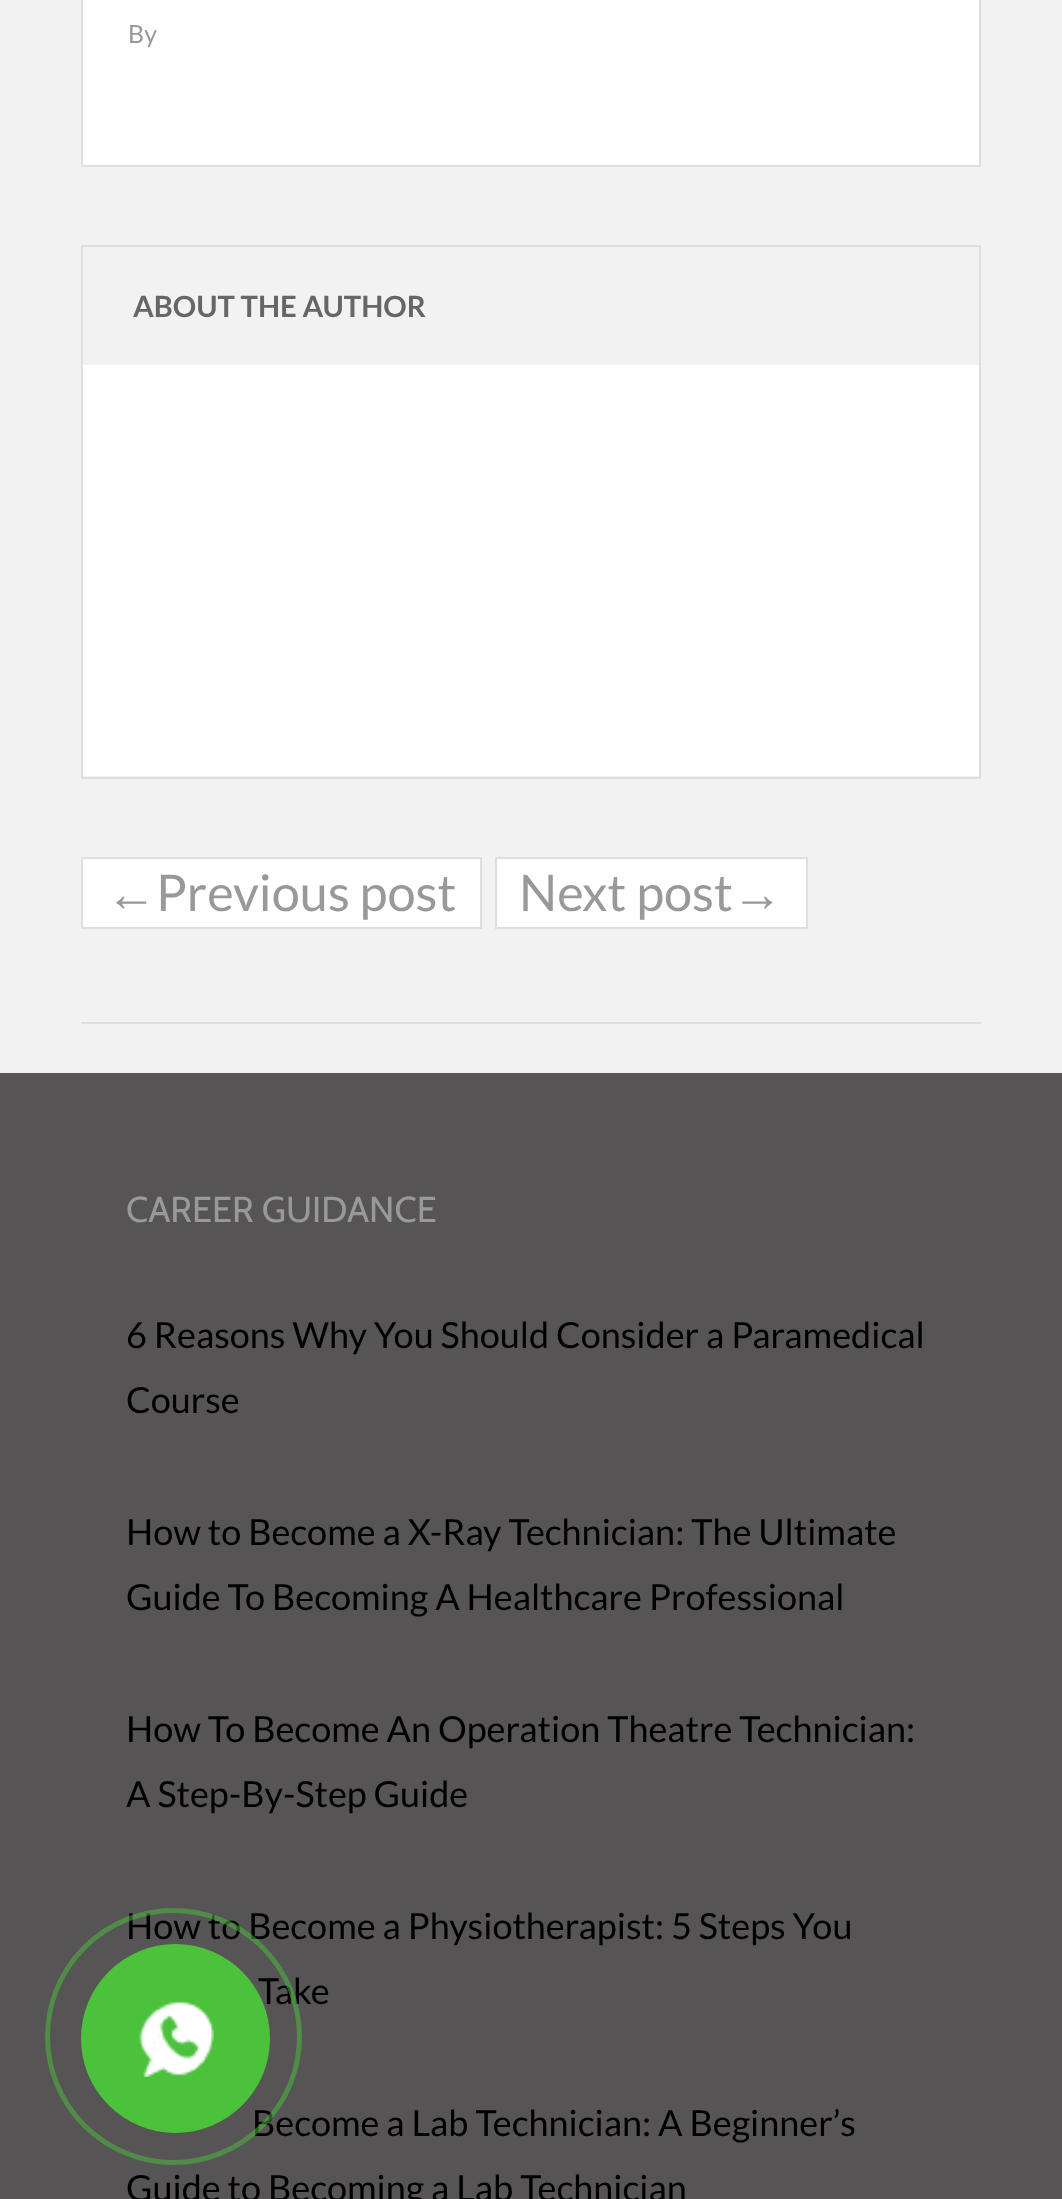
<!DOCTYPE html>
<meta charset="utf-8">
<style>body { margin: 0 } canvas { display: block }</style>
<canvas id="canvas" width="1062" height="2199"></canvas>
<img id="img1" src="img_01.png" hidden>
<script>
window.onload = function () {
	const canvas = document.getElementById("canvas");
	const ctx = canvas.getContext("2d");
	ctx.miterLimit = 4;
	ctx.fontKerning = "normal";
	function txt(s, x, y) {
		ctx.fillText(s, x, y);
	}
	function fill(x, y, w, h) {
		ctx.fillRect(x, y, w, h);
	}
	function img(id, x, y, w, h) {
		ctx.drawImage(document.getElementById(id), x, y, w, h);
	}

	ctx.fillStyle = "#F2F2F2";
	fill(0, 0, 1062, 2199);
	ctx.fillStyle = "#FFFFFF";
	ctx.beginPath();
	ctx.rect(82, -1, 898, 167);
	ctx.fill();
	ctx.strokeStyle = "#DEDEDE";
	ctx.lineWidth = 2;
	ctx.stroke();
	ctx.strokeRect(82, 246, 898, 532);
	fill(83, 365, 896, 411);
	ctx.beginPath();
	ctx.rect(82, 858, 399, 70);
	ctx.fill();
	ctx.stroke();
	ctx.beginPath();
	ctx.rect(496, 858, 311, 70);
	ctx.fill();
	ctx.stroke();
	ctx.fillStyle = "#DEDEDE";
	fill(81, 1022, 900, 2);
	ctx.fillStyle = "#565454";
	fill(0, 1073, 1062, 1126);
	ctx.font = "25px Lato";
	ctx.fillStyle = "#999999";
	txt("By", 128, 43);
	ctx.font = "bold 29.25px Lato";
	ctx.fillStyle = "#666666";
	txt("ABOUT THE AUTHOR", 133, 317);
	ctx.font = "50.5px Liberation Sans";
	ctx.fillStyle = "#999999";
	txt("←", 106, 911);
	ctx.font = "50.5px Lato";
	txt("Previous post", 156, 911);
	txt("Next post", 519, 911);
	ctx.font = "50.5px Liberation Sans";
	txt("→", 732, 911);
	ctx.font = "36px Cabin";
	txt("CAREER GUIDANCE", 126, 1222);
	ctx.font = "36px Lato";
	ctx.fillStyle = "#000000";
	txt("6 Reasons Why You Should Consider a Paramedical", 126, 1348);
	txt("Course", 126, 1413);
	txt("How to Become a X-Ray Technician: The Ultimate", 126, 1545);
	txt("Guide To Becoming A Healthcare Professional", 126, 1610);
	txt("How To Become An Operation Theatre Technician:", 126, 1742);
	txt("A Step-By-Step Guide", 126, 1807);
	txt("How to Become a Physiotherapist: 5 Steps You", 126, 1939);
	txt("Take", 258, 2004);
	txt("Become a Lab Technician: A Beginner’s", 252, 2136);
	txt("Guide to Becoming a Lab Technician", 126, 2201);
	ctx.beginPath();
	ctx.arc(173.5, 2036.5, 126, 0, Math.PI * 2);
	ctx.strokeStyle = "rgba(75, 193, 60, 0.5)";
	ctx.lineWidth = 5;
	ctx.stroke();
	ctx.fillStyle = "#4BC13C";
	ctx.beginPath();
	ctx.arc(175.5, 2038.5, 94.5, 0, Math.PI * 2);
	ctx.fill();
	img("img1", 139, 2000, 75, 77);
};
</script>
